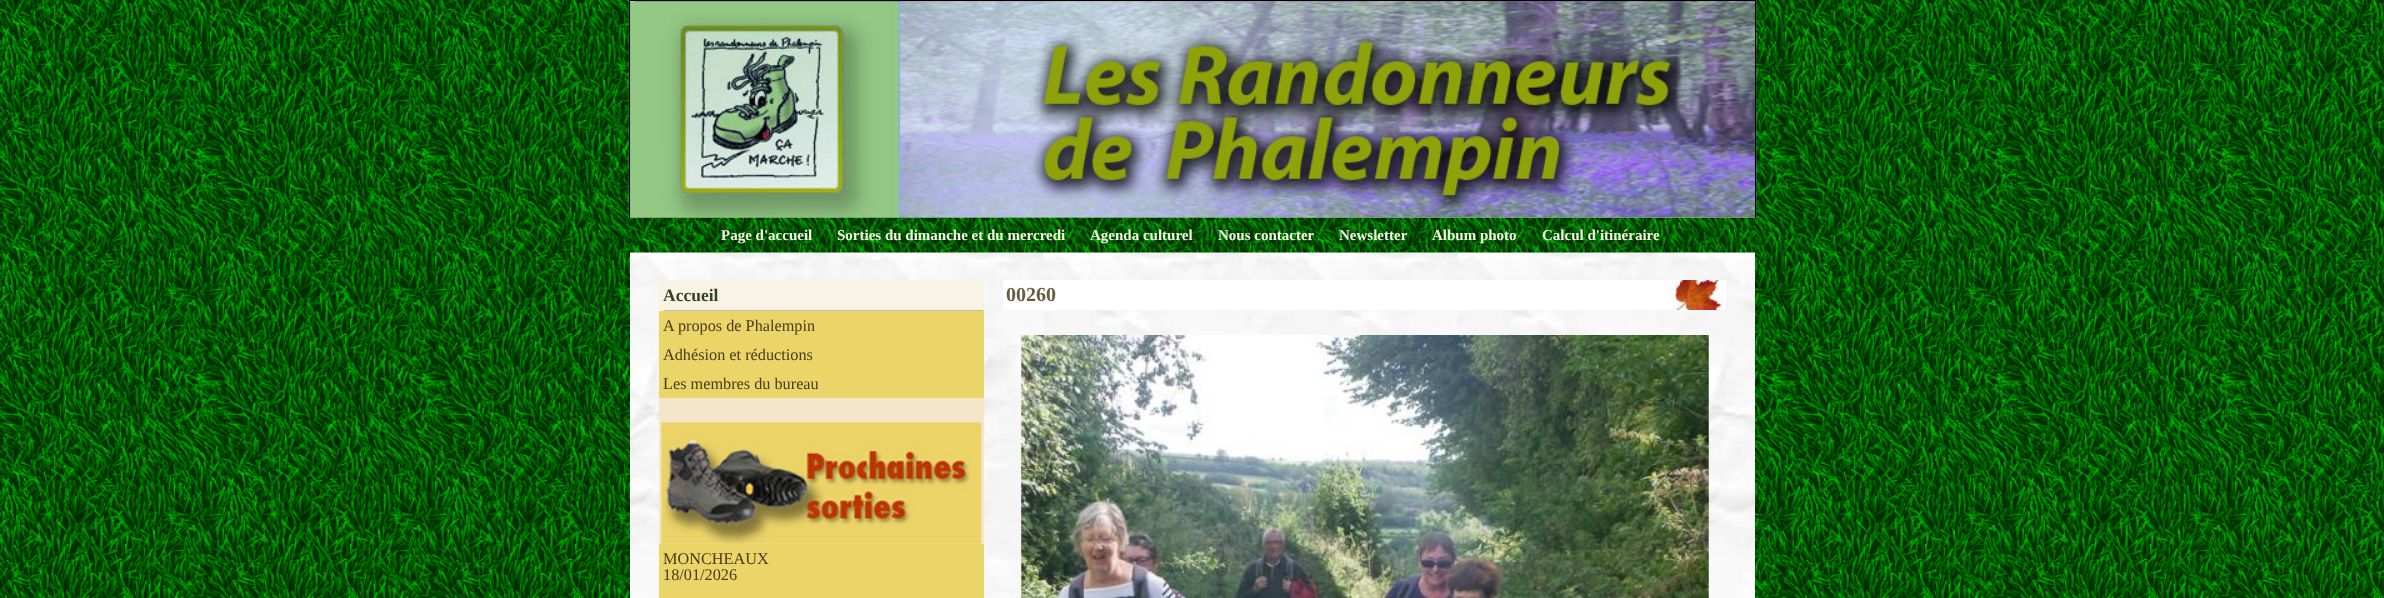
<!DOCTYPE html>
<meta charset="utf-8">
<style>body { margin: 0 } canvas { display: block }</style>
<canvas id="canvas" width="2384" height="598"></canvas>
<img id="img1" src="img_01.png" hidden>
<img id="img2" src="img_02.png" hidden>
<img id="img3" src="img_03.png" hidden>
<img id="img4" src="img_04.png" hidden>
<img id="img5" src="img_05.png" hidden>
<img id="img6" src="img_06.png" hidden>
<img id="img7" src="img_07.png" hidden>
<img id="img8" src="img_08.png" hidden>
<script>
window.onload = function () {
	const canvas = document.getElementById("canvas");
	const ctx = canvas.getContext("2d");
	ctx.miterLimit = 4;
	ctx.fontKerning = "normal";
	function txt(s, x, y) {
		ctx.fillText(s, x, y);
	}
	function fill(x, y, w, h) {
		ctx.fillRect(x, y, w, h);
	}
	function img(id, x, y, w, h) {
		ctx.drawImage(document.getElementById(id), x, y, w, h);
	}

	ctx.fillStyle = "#FFFFFF";
	fill(0, 0, 2384, 598);
	img("img1", 0, 0, 2384, 598);
	img("img2", 628, 0, 1129, 218);
	ctx.fillStyle = "#000000";
	fill(629, 0, 1127, 1);
	fill(1755, 0, 1, 218);
	fill(629, 0, 1, 218);
	img("img3", 630, 217, 1125, 381);
	img("img4", 630, 217, 1125, 36);
	ctx.fillStyle = "#F5E6CA";
	fill(659, 280, 325, 264);
	img("img5", 658, 280, 326, 32);
	ctx.fillStyle = "#EBD468";
	fill(659, 311, 325, 87);
	img("img6", 661, 422, 321, 122);
	fill(659, 544, 325, 54);
	img("img7", 1003, 280, 723, 30);
	img("img8", 1021, 335, 688, 263);
	ctx.font = "bold 15px Liberation Serif";
	ctx.fillStyle = "#F5F5E2";
	txt("Page d'accueil", 721, 240);
	txt("Sorties du dimanche et du mercredi", 837, 240);
	txt("Agenda culturel", 1090, 240);
	txt("Nous contacter", 1218, 240);
	txt("Newsletter", 1339, 240);
	txt("Album photo", 1432, 240);
	txt("Calcul d'itinéraire", 1542, 240);
	ctx.font = "bold 17.5px Liberation Serif";
	ctx.fillStyle = "#354022";
	txt("Accueil", 663, 301);
	ctx.font = "16.25px Liberation Serif";
	ctx.fillStyle = "#493C1C";
	txt("A propos de Phalempin", 663, 331);
	txt("Adhésion et réductions", 663, 360);
	txt("Les membres du bureau", 663, 389);
	txt("MONCHEAUX", 663, 564);
	txt("18/01/2026", 663, 580);
	ctx.font = "bold 20px Liberation Serif";
	ctx.fillStyle = "#675A3F";
	txt("00260", 1006, 301);
};
</script>
